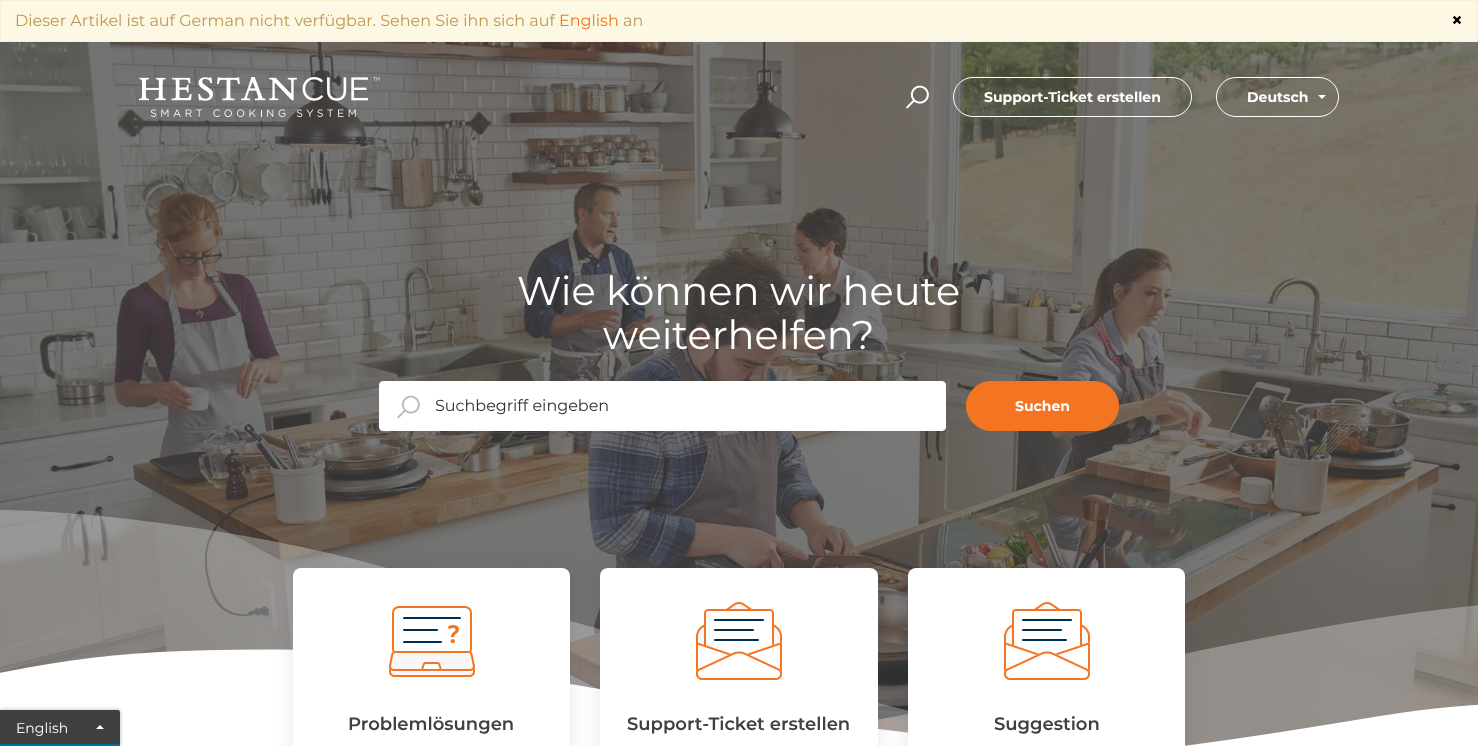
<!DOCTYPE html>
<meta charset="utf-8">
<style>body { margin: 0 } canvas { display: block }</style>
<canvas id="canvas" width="1478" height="746"></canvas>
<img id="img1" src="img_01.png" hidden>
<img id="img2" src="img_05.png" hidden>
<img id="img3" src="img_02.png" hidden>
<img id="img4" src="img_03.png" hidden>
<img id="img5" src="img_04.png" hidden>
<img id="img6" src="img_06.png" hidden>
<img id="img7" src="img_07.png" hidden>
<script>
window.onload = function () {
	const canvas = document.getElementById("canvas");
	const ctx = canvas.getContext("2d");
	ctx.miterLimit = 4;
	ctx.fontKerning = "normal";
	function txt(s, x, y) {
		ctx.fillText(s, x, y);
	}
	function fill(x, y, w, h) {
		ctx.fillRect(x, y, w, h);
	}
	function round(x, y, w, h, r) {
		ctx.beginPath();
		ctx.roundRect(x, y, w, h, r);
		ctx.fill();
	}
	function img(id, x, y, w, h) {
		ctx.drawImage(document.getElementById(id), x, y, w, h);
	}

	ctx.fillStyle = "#FCF8E3";
	fill(0, 0, 1478, 746);
	ctx.strokeStyle = "#FBEED5";
	ctx.strokeRect(0.5, 0.5, 1477, 41);
	img("img1", 0, 42, 1478, 704);
	img("img2", 0, 509, 1478, 237);
	ctx.save();
	ctx.beginPath();
	ctx.moveTo(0, 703);
	ctx.lineTo(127, 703);
	ctx.lineTo(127, 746);
	ctx.lineTo(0, 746);
	ctx.closePath();
	ctx.moveTo(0, 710);
	ctx.lineTo(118, 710);
	ctx.bezierCurveTo(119, 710, 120, 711, 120, 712);
	ctx.lineTo(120, 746);
	ctx.lineTo(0, 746);
	ctx.closePath();
	ctx.clip("evenodd");
	ctx.fillStyle = "rgba(0, 0, 0, 0.3)";
	ctx.filter = "blur(2px)";
	ctx.beginPath();
	ctx.roundRect(0, 710, 120, 36, 2);
	ctx.fill();
	ctx.filter = "none";
	ctx.restore();
	ctx.fillStyle = "rgba(0, 0, 0, 0.75)";
	ctx.beginPath();
	ctx.roundRect(0, 710, 120, 36, [0, 2, 0, 0]);
	ctx.fill();
	ctx.fillStyle = "#006F9F";
	fill(0, 744, 120, 2);
	ctx.fillStyle = "#FFFFFF";
	ctx.beginPath();
	ctx.moveTo(104, 729);
	ctx.lineTo(96, 729);
	ctx.lineTo(100, 725);
	ctx.closePath();
	ctx.fill();
	img("img3", 139, 77, 241, 40);
	img("img4", 906, 85, 23, 24);
	ctx.beginPath();
	ctx.roundRect(953.5, 77.5, 238, 39, 19.5);
	ctx.strokeStyle = "#FFFFFF";
	ctx.stroke();
	ctx.beginPath();
	ctx.roundRect(1216.5, 77.5, 122, 39, 19.5);
	ctx.stroke();
	ctx.beginPath();
	ctx.moveTo(1318, 95);
	ctx.lineTo(1326, 95);
	ctx.lineTo(1322, 99);
	ctx.closePath();
	ctx.fill();
	ctx.beginPath();
	ctx.roundRect(379.5, 381.5, 566, 49, 3.5);
	ctx.fill();
	ctx.stroke();
	img("img5", 397, 395, 23, 24);
	ctx.fillStyle = "#F47521";
	ctx.beginPath();
	ctx.roundRect(966.5, 381.5, 152, 49, 24.5);
	ctx.fill();
	ctx.strokeStyle = "#F47521";
	ctx.stroke();
	ctx.fillStyle = "rgba(62, 60, 98, 0.08)";
	ctx.filter = "blur(7.5px)";
	ctx.beginPath();
	ctx.roundRect(288, 563, 287, 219, 13);
	ctx.fill();
	ctx.filter = "none";
	ctx.fillStyle = "#FFFFFF";
	round(293, 568, 277, 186, 8);
	img("img6", 389, 606, 86, 71);
	ctx.fillStyle = "rgba(62, 60, 98, 0.08)";
	ctx.filter = "blur(7.5px)";
	ctx.beginPath();
	ctx.roundRect(595, 563, 288, 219, 13);
	ctx.fill();
	ctx.filter = "none";
	ctx.fillStyle = "#FFFFFF";
	round(600, 568, 278, 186, 8);
	img("img7", 696, 602, 86, 78);
	ctx.fillStyle = "rgba(62, 60, 98, 0.08)";
	ctx.filter = "blur(7.5px)";
	ctx.beginPath();
	ctx.roundRect(903, 563, 287, 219, 13);
	ctx.fill();
	ctx.filter = "none";
	ctx.fillStyle = "#FFFFFF";
	round(908, 568, 277, 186, 8);
	img("img7", 1004, 602, 86, 78);
	ctx.font = "16px Montserrat";
	ctx.fillStyle = "#C09853";
	txt("Dieser Artikel ist auf German nicht verfügbar. Sehen Sie ihn sich auf", 15, 26);
	ctx.fillStyle = "#F47521";
	txt("English", 559, 26);
	ctx.fillStyle = "#C09853";
	txt("an", 623, 26);
	ctx.font = "bold 20px Montserrat";
	ctx.fillStyle = "#000000";
	txt("×", 1451, 27);
	ctx.font = "14px Montserrat";
	ctx.fillStyle = "#FFFFFF";
	txt("English", 16, 733);
	ctx.font = "bold 14px Montserrat";
	txt("Support-Ticket erstellen", 984, 102);
	txt("Deutsch", 1247, 102);
	ctx.font = "40px Montserrat";
	txt("Wie können wir heute", 517, 305);
	txt("weiterhelfen?", 603, 349);
	ctx.font = "16px Montserrat";
	ctx.fillStyle = "#333333";
	txt("Suchbegriff eingeben", 435, 411);
	ctx.font = "bold 14px Montserrat";
	ctx.fillStyle = "#FFFFFF";
	txt("Suchen", 1015, 411);
	ctx.font = "600 18px Montserrat";
	ctx.fillStyle = "#404040";
	txt("Problemlösungen", 348, 730);
	txt("Support-Ticket erstellen", 627, 730);
	txt("Suggestion", 994, 730);
};
</script>
